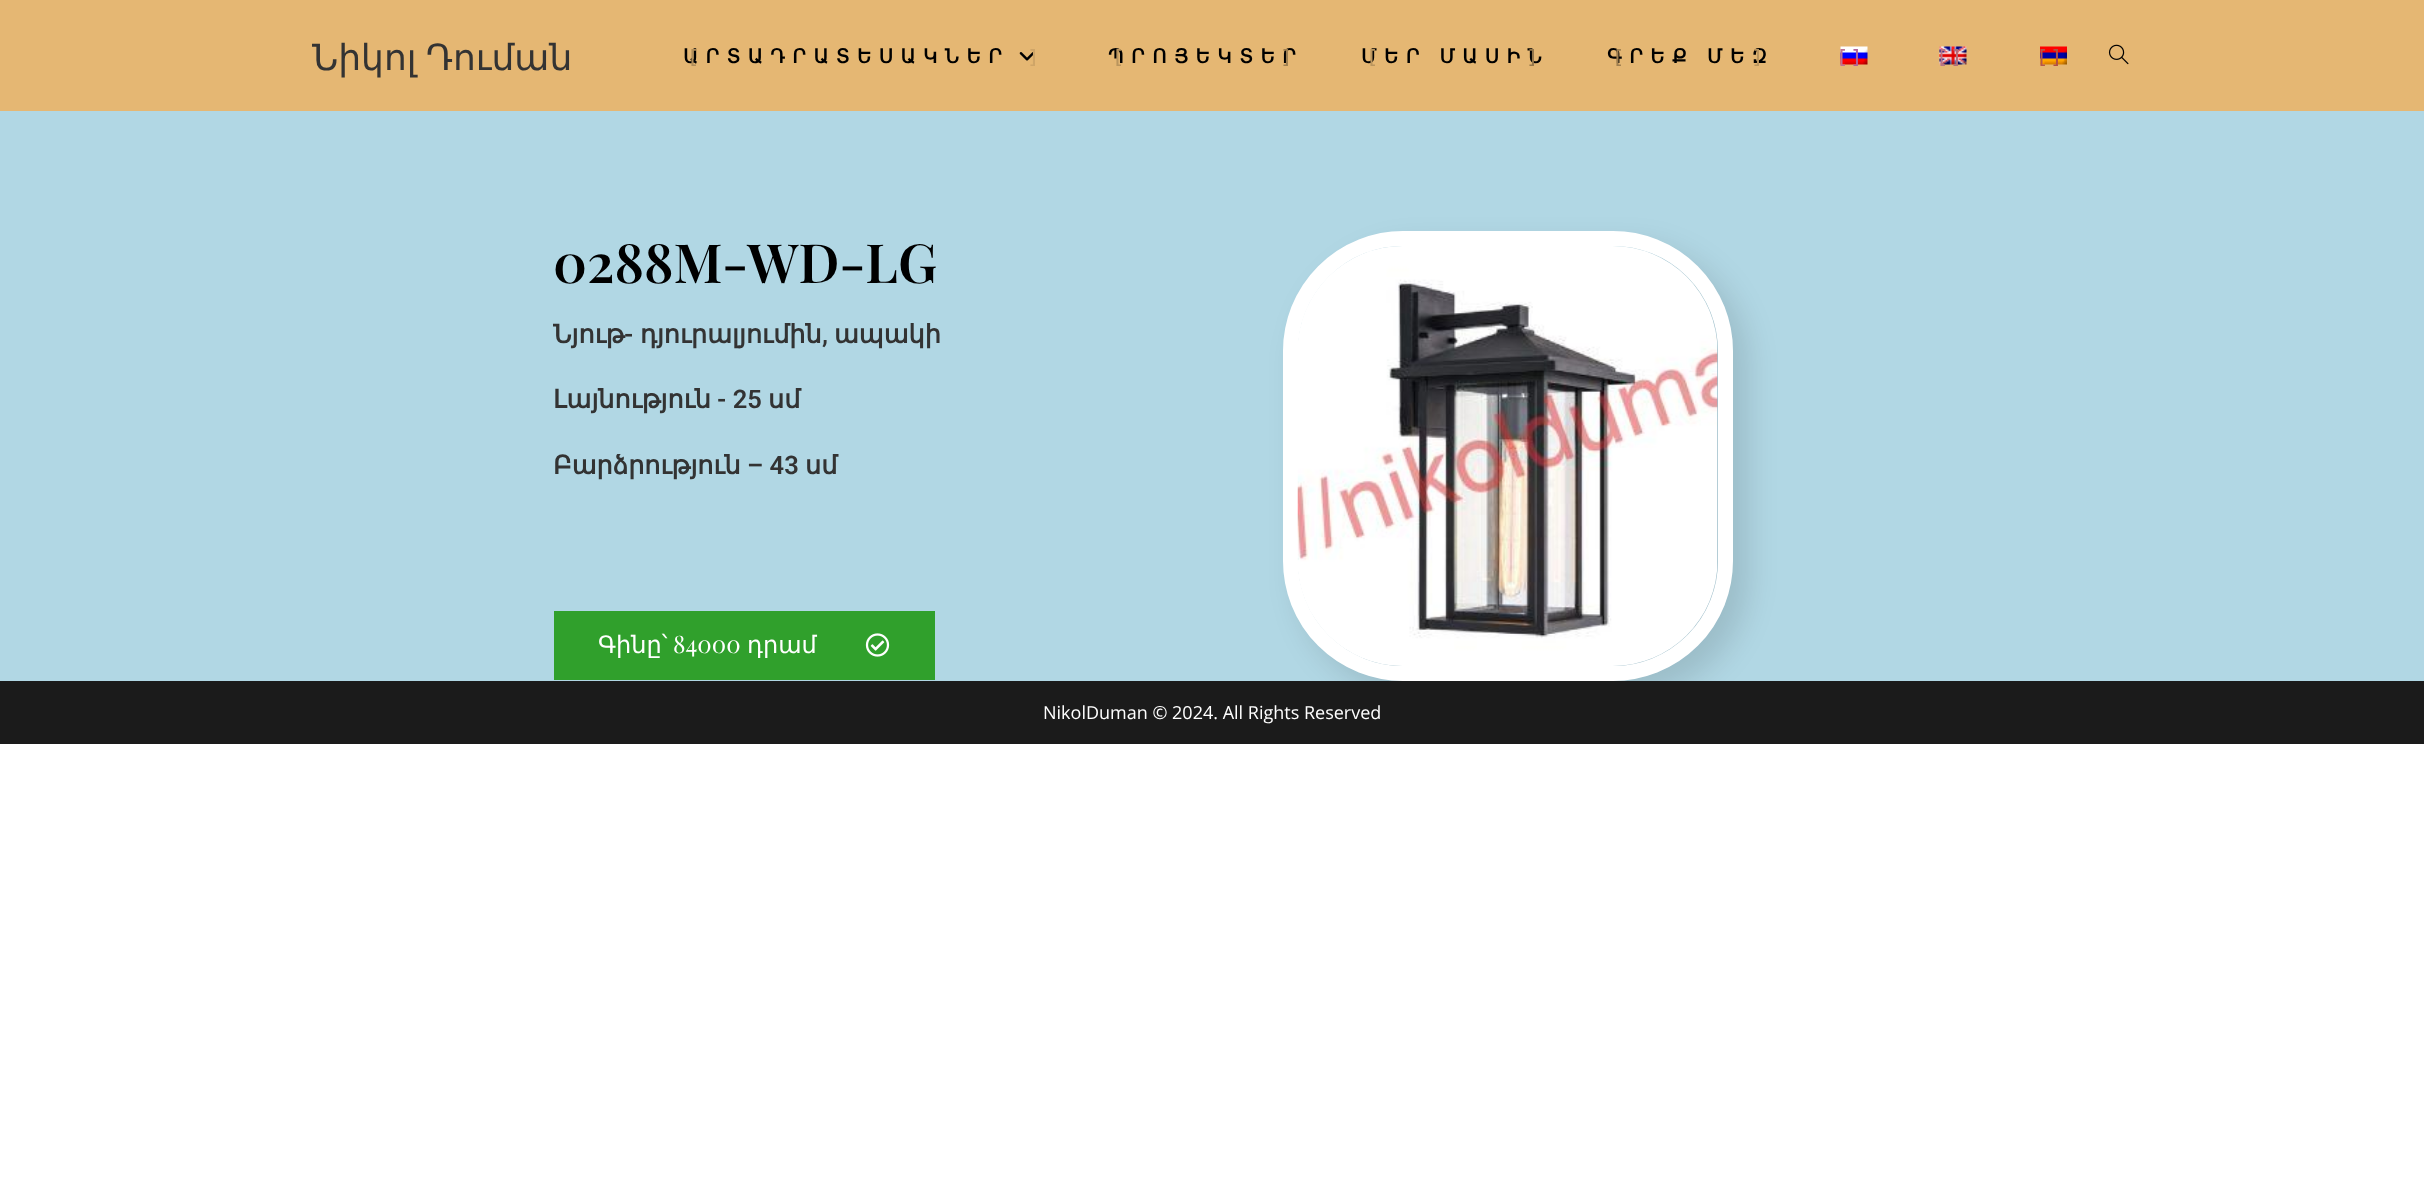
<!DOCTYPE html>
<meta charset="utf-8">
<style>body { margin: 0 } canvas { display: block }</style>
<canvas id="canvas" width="2424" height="1192"></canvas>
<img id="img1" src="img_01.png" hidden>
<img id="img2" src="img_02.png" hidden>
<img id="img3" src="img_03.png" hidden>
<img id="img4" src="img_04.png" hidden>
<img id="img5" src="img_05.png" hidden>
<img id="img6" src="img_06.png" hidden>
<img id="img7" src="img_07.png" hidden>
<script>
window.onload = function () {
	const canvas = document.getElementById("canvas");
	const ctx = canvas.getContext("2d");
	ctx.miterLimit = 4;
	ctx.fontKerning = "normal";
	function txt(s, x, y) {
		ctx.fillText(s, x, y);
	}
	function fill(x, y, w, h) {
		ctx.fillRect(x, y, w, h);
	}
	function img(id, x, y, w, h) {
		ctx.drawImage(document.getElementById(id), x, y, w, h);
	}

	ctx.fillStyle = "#FFFFFF";
	fill(0, 0, 2424, 1192);
	ctx.fillStyle = "#E5B773";
	fill(0, 0, 2424, 111);
	img("img1", 1019, 52, 16, 9);
	img("img2", 1840, 46, 28, 19);
	img("img3", 1939, 46, 28, 19);
	img("img4", 2040, 46, 27, 19);
	img("img5", 2108, 44, 21, 21);
	ctx.fillStyle = "#B1D7E4";
	fill(0, 111, 2424, 570);
	ctx.fillStyle = "#30A02C";
	fill(554, 611, 381, 69);
	img("img6", 865, 633, 25, 24);
	ctx.fillStyle = "rgba(0, 0, 0, 0.12)";
	ctx.filter = "blur(15px)";
	ctx.beginPath();
	ctx.roundRect(1298, 246, 450, 450, 120);
	ctx.fill();
	ctx.filter = "none";
	ctx.beginPath();
	ctx.roundRect(1290.5, 238.5, 435, 435, 112.5);
	ctx.strokeStyle = "#FFFFFF";
	ctx.lineWidth = 15;
	ctx.stroke();
	img("img7", 1297, 246, 421, 420);
	ctx.fillStyle = "#1B1B1B";
	fill(0, 681, 2424, 63);
	ctx.wordSpacing = "-2px";
	ctx.font = "36px DejaVu Sans";
	ctx.fillStyle = "#333333";
	txt("Նիկոլ Դուման", 312, 70);
	ctx.letterSpacing = "7.5px";
	ctx.wordSpacing = "0px";
	ctx.font = "bold 19.5px DejaVu Sans";
	ctx.fillStyle = "#000000";
	txt("ԱՐՏԱԴՐԱՏԵՍԱԿՆԵՐ", 683, 63);
	ctx.font = "600 19.5px Open Sans";
	ctx.fillStyle = "#B08D59";
	txt("[", 690, 63);
	ctx.fillStyle = "#CFA568";
	txt("]", 1030, 63);
	ctx.font = "bold 19.5px DejaVu Sans";
	ctx.fillStyle = "#000000";
	txt("ՊՐՈՅԵԿՏԵՐ", 1108, 63);
	ctx.font = "600 19.5px Open Sans";
	ctx.fillStyle = "#BA955E";
	txt("[", 1115, 63);
	ctx.fillStyle = "#9F7F50";
	txt("]", 1283, 63);
	ctx.wordSpacing = "-1px";
	ctx.font = "bold 19.5px DejaVu Sans";
	ctx.fillStyle = "#000000";
	txt("ՄԵՐ ՄԱՍԻՆ", 1361, 63);
	ctx.wordSpacing = "0px";
	ctx.font = "600 19.5px Open Sans";
	ctx.fillStyle = "#BA955E";
	txt("[", 1369, 63);
	ctx.fillStyle = "#94764A";
	txt("]", 1529, 63);
	ctx.wordSpacing = "-1px";
	ctx.font = "bold 19.5px DejaVu Sans";
	ctx.fillStyle = "#000000";
	txt("ԳՐԵՔ ՄԵԶ", 1607, 63);
	ctx.wordSpacing = "0px";
	ctx.font = "600 19.5px Open Sans";
	ctx.fillStyle = "#9F7F50";
	txt("[", 1615, 63);
	ctx.fillStyle = "#BA955E";
	txt("]", 1754, 63);
	ctx.fillStyle = "#BE7294";
	txt("[", 1839, 63);
	ctx.fillStyle = "#B16399";
	txt("]", 1853, 63);
	ctx.fillStyle = "#B67487";
	txt("[", 1939, 63);
	ctx.fillStyle = "#B26D79";
	txt("]", 1953, 63);
	ctx.fillStyle = "#B5574B";
	txt("[", 2039, 63);
	ctx.fillStyle = "#B15044";
	txt("]", 2053, 63);
	ctx.letterSpacing = "0px";
	ctx.font = "600 54px Playfair Display";
	ctx.fillStyle = "#000000";
	txt("0288M-WD-LG", 553, 283);
	ctx.font = "bold 25.5px DejaVu Sans";
	ctx.fillStyle = "#333333";
	txt("Նյութ", 553, 343);
	ctx.font = "600 25.5px Roboto";
	txt("-", 624, 343);
	ctx.font = "bold 25.5px DejaVu Sans";
	txt("դյուրալյումին", 640, 343);
	txt("ապակի", 834, 343);
	ctx.font = "600 25.5px Roboto";
	txt(",", 822, 343);
	ctx.font = "bold 25.5px DejaVu Sans";
	txt("Լայնություն", 553, 408);
	ctx.font = "600 25.5px Roboto";
	txt("- 25", 717, 408);
	ctx.font = "bold 25.5px DejaVu Sans";
	txt("սմ", 768, 408);
	txt("Բարձրություն", 553, 474);
	ctx.font = "600 25.5px Roboto";
	txt("– 43", 747, 474);
	ctx.font = "bold 25.5px DejaVu Sans";
	txt("սմ", 805, 474);
	ctx.font = "24px DejaVu Sans";
	ctx.fillStyle = "#FFFFFF";
	txt("Գինը՝", 598, 653);
	ctx.font = "24px Playfair Display";
	txt("84000", 673, 653);
	ctx.font = "24px DejaVu Sans";
	txt("դրամ", 747, 653);
	ctx.font = "18px Open Sans";
	txt("NikolDuman © 2024. All Rights Reserved", 1043, 719);
};
</script>
